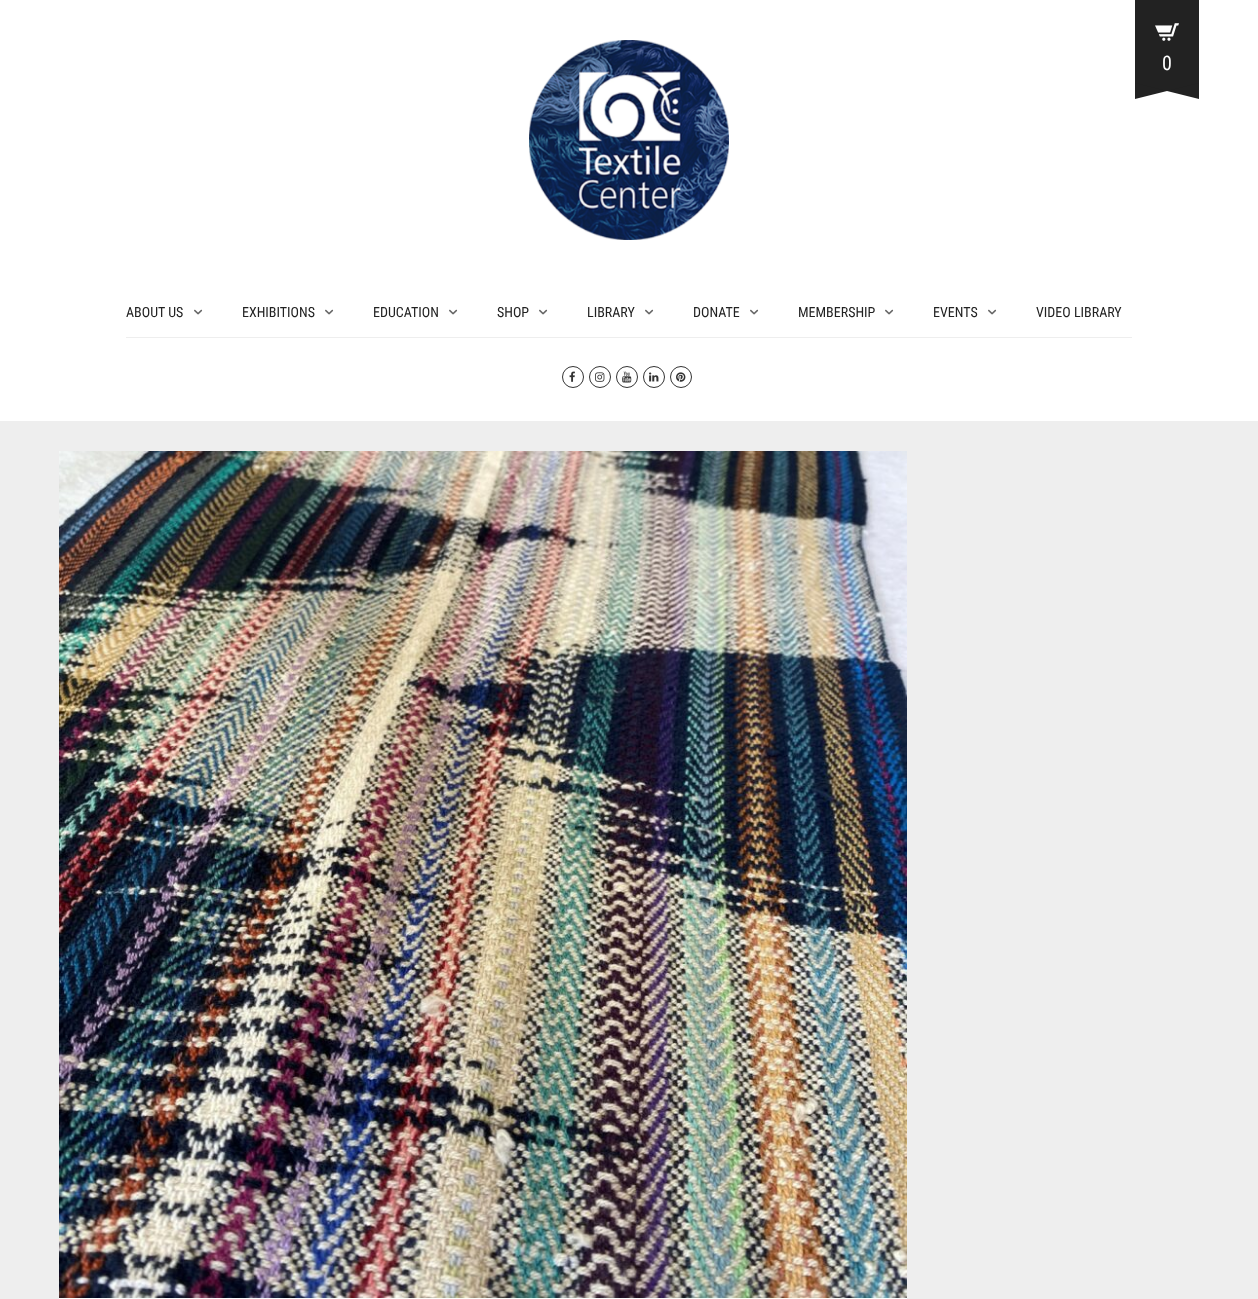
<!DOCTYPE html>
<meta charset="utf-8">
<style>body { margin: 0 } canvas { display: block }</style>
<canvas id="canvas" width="1258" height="1299"></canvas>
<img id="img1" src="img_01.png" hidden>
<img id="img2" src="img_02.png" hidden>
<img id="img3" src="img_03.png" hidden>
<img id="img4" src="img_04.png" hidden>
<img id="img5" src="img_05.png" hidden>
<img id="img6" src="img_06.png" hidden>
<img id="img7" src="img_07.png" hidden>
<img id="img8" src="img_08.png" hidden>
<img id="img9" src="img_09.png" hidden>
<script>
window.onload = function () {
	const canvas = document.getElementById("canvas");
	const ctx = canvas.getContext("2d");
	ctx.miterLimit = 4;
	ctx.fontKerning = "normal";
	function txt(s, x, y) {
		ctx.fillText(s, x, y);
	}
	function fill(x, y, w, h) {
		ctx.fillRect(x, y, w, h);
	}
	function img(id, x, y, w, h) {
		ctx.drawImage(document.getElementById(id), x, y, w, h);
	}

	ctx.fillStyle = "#EEEEEE";
	fill(0, 0, 1258, 1299);
	ctx.fillStyle = "#FFFFFF";
	fill(0, 0, 1258, 421);
	img("img1", 529, 40, 200, 200);
	ctx.fillStyle = "#222222";
	fill(1135, 0, 64, 91);
	img("img2", 1155, 23, 24, 18);
	ctx.beginPath();
	ctx.moveTo(1199, 83);
	ctx.lineTo(1199, 99);
	ctx.lineTo(1167, 91);
	ctx.closePath();
	ctx.fill();
	ctx.beginPath();
	ctx.moveTo(1135, 99);
	ctx.lineTo(1135, 83);
	ctx.lineTo(1167, 91);
	ctx.closePath();
	ctx.fill();
	ctx.fillStyle = "#EEEEEE";
	fill(126, 337, 1006, 1);
	img("img3", 194, 309, 9, 6);
	img("img3", 325, 309, 9, 6);
	img("img3", 449, 309, 9, 6);
	img("img3", 539, 309, 9, 6);
	img("img3", 645, 309, 9, 6);
	img("img3", 750, 309, 9, 6);
	img("img3", 885, 309, 9, 6);
	img("img3", 988, 309, 9, 6);
	ctx.beginPath();
	ctx.arc(573, 377, 10.5, 0, Math.PI * 2);
	ctx.strokeStyle = "#333333";
	ctx.stroke();
	img("img4", 569, 371, 6, 11);
	ctx.beginPath();
	ctx.arc(600, 377, 10.5, 0, Math.PI * 2);
	ctx.stroke();
	img("img5", 595, 372, 10, 10);
	ctx.beginPath();
	ctx.arc(627, 377, 10.5, 0, Math.PI * 2);
	ctx.stroke();
	img("img6", 622, 371, 10, 12);
	ctx.beginPath();
	ctx.arc(654, 377, 10.5, 0, Math.PI * 2);
	ctx.stroke();
	img("img7", 649, 372, 10, 10);
	ctx.beginPath();
	ctx.arc(681, 377, 10.5, 0, Math.PI * 2);
	ctx.stroke();
	img("img8", 676, 372, 10, 10);
	ctx.fillStyle = "#FFFFFF";
	fill(59, 1298, 848, 1);
	img("img9", 59, 451, 848, 847);
	ctx.font = "20px Roboto Condensed";
	txt("0", 1162, 70);
	ctx.font = "14px Roboto Condensed";
	ctx.fillStyle = "#222222";
	txt("ABOUT US", 126, 317);
	txt("EXHIBITIONS", 242, 317);
	txt("EDUCATION", 373, 317);
	txt("SHOP", 497, 317);
	txt("LIBRARY", 587, 317);
	txt("DONATE", 693, 317);
	txt("MEMBERSHIP", 798, 317);
	txt("EVENTS", 933, 317);
	txt("VIDEO LIBRARY", 1036, 317);
};
</script>
